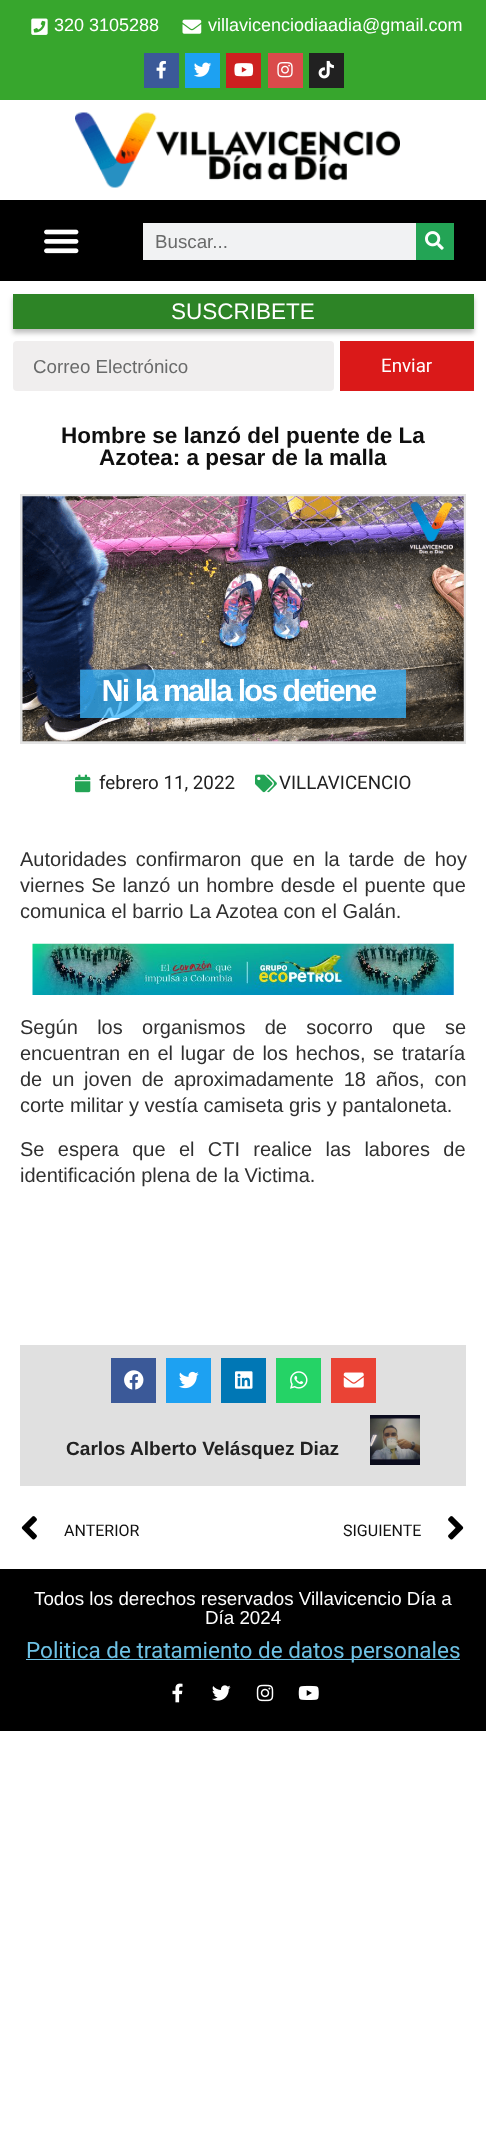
<!DOCTYPE html>
<meta charset="utf-8">
<style>body { margin: 0 } canvas { display: block }</style>
<canvas id="canvas" width="486" height="2142"></canvas>
<img id="img1" src="img_01.png" hidden>
<img id="img2" src="img_02.png" hidden>
<img id="img3" src="img_03.png" hidden>
<img id="img4" src="img_04.png" hidden>
<img id="img5" src="img_05.png" hidden>
<img id="img6" src="img_06.png" hidden>
<img id="img7" src="img_07.png" hidden>
<img id="img8" src="img_08.png" hidden>
<img id="img9" src="img_09.png" hidden>
<img id="img10" src="img_10.png" hidden>
<img id="img11" src="img_11.png" hidden>
<img id="img12" src="img_12.png" hidden>
<img id="img13" src="img_13.png" hidden>
<img id="img14" src="img_14.png" hidden>
<img id="img15" src="img_15.png" hidden>
<img id="img16" src="img_16.png" hidden>
<img id="img17" src="img_17.png" hidden>
<img id="img18" src="img_18.png" hidden>
<img id="img19" src="img_19.png" hidden>
<img id="img20" src="img_20.png" hidden>
<img id="img21" src="img_21.png" hidden>
<img id="img22" src="img_22.png" hidden>
<img id="img23" src="img_23.png" hidden>
<img id="img24" src="img_24.png" hidden>
<img id="img25" src="img_25.png" hidden>
<img id="img26" src="img_26.png" hidden>
<script>
window.onload = function () {
	const canvas = document.getElementById("canvas");
	const ctx = canvas.getContext("2d");
	ctx.miterLimit = 4;
	ctx.fontKerning = "normal";
	function txt(s, x, y) {
		ctx.fillText(s, x, y);
	}
	function fill(x, y, w, h) {
		ctx.fillRect(x, y, w, h);
	}
	function round(x, y, w, h, r) {
		ctx.beginPath();
		ctx.roundRect(x, y, w, h, r);
		ctx.fill();
	}
	function img(id, x, y, w, h) {
		ctx.drawImage(document.getElementById(id), x, y, w, h);
	}

	ctx.fillStyle = "#FFFFFF";
	fill(0, 0, 486, 2142);
	ctx.fillStyle = "#37A62D";
	fill(0, 0, 486, 100);
	img("img1", 31, 18, 17, 17);
	img("img2", 182, 19, 20, 15);
	ctx.fillStyle = "#3B5998";
	fill(144, 53, 35, 35);
	img("img3", 156, 60, 10, 19);
	ctx.fillStyle = "#1DA1F2";
	fill(185, 53, 35, 35);
	img("img4", 194, 62, 18, 15);
	ctx.fillStyle = "#CD201F";
	fill(226, 53, 35, 35);
	img("img5", 234, 63, 20, 14);
	ctx.fillStyle = "#DA4B4B";
	fill(268, 53, 35, 35);
	img("img6", 277, 62, 16, 16);
	ctx.fillStyle = "#212121";
	fill(309, 53, 35, 35);
	img("img7", 318, 60, 16, 19);
	img("img8", 75, 112, 325, 76);
	ctx.fillStyle = "#000000";
	fill(0, 200, 486, 81);
	img("img9", 44, 229, 35, 25);
	ctx.fillStyle = "#F1F2F3";
	fill(143, 223, 273, 37);
	ctx.fillStyle = "#23A455";
	fill(416, 223, 38, 37);
	img("img10", 425, 231, 19, 19);
	ctx.fillStyle = "rgba(0, 0, 0, 0.25)";
	ctx.filter = "blur(2.5px)";
	ctx.beginPath();
	ctx.rect(13, 298, 461, 35);
	ctx.fill();
	ctx.filter = "none";
	ctx.fillStyle = "#2D8426";
	fill(13, 294, 461, 35);
	ctx.fillStyle = "#F0EEEE";
	round(13, 341, 321, 50, 4);
	ctx.fillStyle = "#DA1919";
	fill(340, 341, 134, 50);
	ctx.strokeStyle = "#E2E2E2";
	ctx.lineWidth = 3;
	ctx.strokeRect(21.5, 495.5, 443, 247);
	img("img11", 22, 496, 442, 246);
	img("img12", 75, 774, 16, 19);
	img("img13", 255, 774, 22, 19);
	img("img14", 32, 943, 422, 52);
	ctx.fillStyle = "#E0E0E0";
	fill(20, 1345, 446, 141);
	ctx.fillStyle = "#3B5998";
	fill(111, 1358, 45, 45);
	img("img15", 124, 1370, 20, 20);
	ctx.fillStyle = "#1DA1F2";
	fill(166, 1358, 45, 45);
	img("img16", 178, 1371, 21, 18);
	ctx.fillStyle = "#0077B5";
	fill(221, 1358, 45, 45);
	img("img17", 235, 1371, 18, 18);
	ctx.fillStyle = "#25D366";
	fill(276, 1358, 45, 45);
	img("img18", 290, 1371, 18, 18);
	ctx.fillStyle = "#EA4335";
	fill(331, 1358, 45, 45);
	img("img19", 343, 1372, 21, 16);
	img("img20", 370, 1415, 50, 50);
	img("img21", 21, 1516, 16, 24);
	img("img22", 448, 1516, 16, 24);
	ctx.fillStyle = "#000000";
	fill(0, 1569, 486, 162);
	ctx.fillStyle = "#6EC1E4";
	fill(26, 1659, 434, 1);
	img("img23", 172, 1683, 11, 20);
	img("img24", 212, 1685, 19, 16);
	img("img25", 256, 1684, 18, 18);
	img("img26", 298, 1685, 21, 15);
	ctx.font = "18px Liberation Sans";
	ctx.fillStyle = "#FFFFFF";
	txt("320 3105288", 54, 31);
	txt("villavicenciodiaadia@gmail.com", 208, 31);
	ctx.font = "18.75px Liberation Sans";
	ctx.fillStyle = "#696A6A";
	txt("Buscar...", 155, 248);
	ctx.font = "22.5px Liberation Sans";
	ctx.fillStyle = "#FFFFFF";
	txt("SUSCRIBETE", 171, 319);
	ctx.font = "18.75px Liberation Sans";
	ctx.fillStyle = "#696A6A";
	txt("Correo Electrónico", 33, 373);
	ctx.font = "18.75px Roboto";
	ctx.fillStyle = "#FFFFFF";
	txt("Enviar", 381, 372);
	ctx.font = "bold 22.5px Liberation Sans";
	ctx.fillStyle = "#0F0F0F";
	txt("Hombre se lanzó del puente de La", 61, 443);
	txt("Azotea: a pesar de la malla", 99, 465);
	ctx.font = "18.75px Roboto";
	ctx.fillStyle = "#212121";
	txt("febrero 11, 2022", 99, 789);
	txt("VILLAVICENCIO", 279, 789);
	ctx.wordSpacing = "3.5px";
	ctx.font = "20px Liberation Sans";
	ctx.fillStyle = "#303030";
	txt("Autoridades confirmaron que en la tarde de hoy", 20, 866);
	ctx.wordSpacing = "1.25px";
	txt("viernes Se lanzó un hombre desde el puente que", 20, 892);
	ctx.wordSpacing = "0px";
	txt("comunica el barrio La Azotea con el Galán.", 20, 918);
	ctx.wordSpacing = "13.75px";
	txt("Según los organismos de socorro que se", 20, 1034);
	ctx.wordSpacing = "2px";
	txt("encuentran en el lugar de los hechos, se trataría", 20, 1060);
	ctx.wordSpacing = "4.25px";
	txt("de un joven de aproximadamente 18 años, con", 20, 1086);
	ctx.wordSpacing = "0px";
	txt("corte militar y vestía camiseta gris y pantaloneta.", 20, 1112);
	ctx.wordSpacing = "7.75px";
	txt("Se espera que el CTI realice las labores de", 20, 1156);
	ctx.wordSpacing = "0px";
	txt("identificación plena de la Victima.", 20, 1182);
	ctx.font = "bold 19.1px Liberation Sans";
	ctx.fillStyle = "#212121";
	txt("Carlos Alberto Velásquez Diaz", 66, 1455);
	ctx.font = "16px Roboto";
	ctx.fillStyle = "#0F0F0F";
	txt("ANTERIOR", 64, 1536);
	txt("SIGUIENTE", 343, 1536);
	ctx.font = "18.75px Liberation Sans";
	ctx.fillStyle = "#FFFFFF";
	txt("Todos los derechos reservados Villavicencio Día a", 34, 1605);
	txt("Día 2024", 205, 1624);
	ctx.font = "22.5px Roboto";
	ctx.fillStyle = "#6EC1E4";
	txt("Politica de tratamiento de datos personales", 26, 1658);
};
</script>
